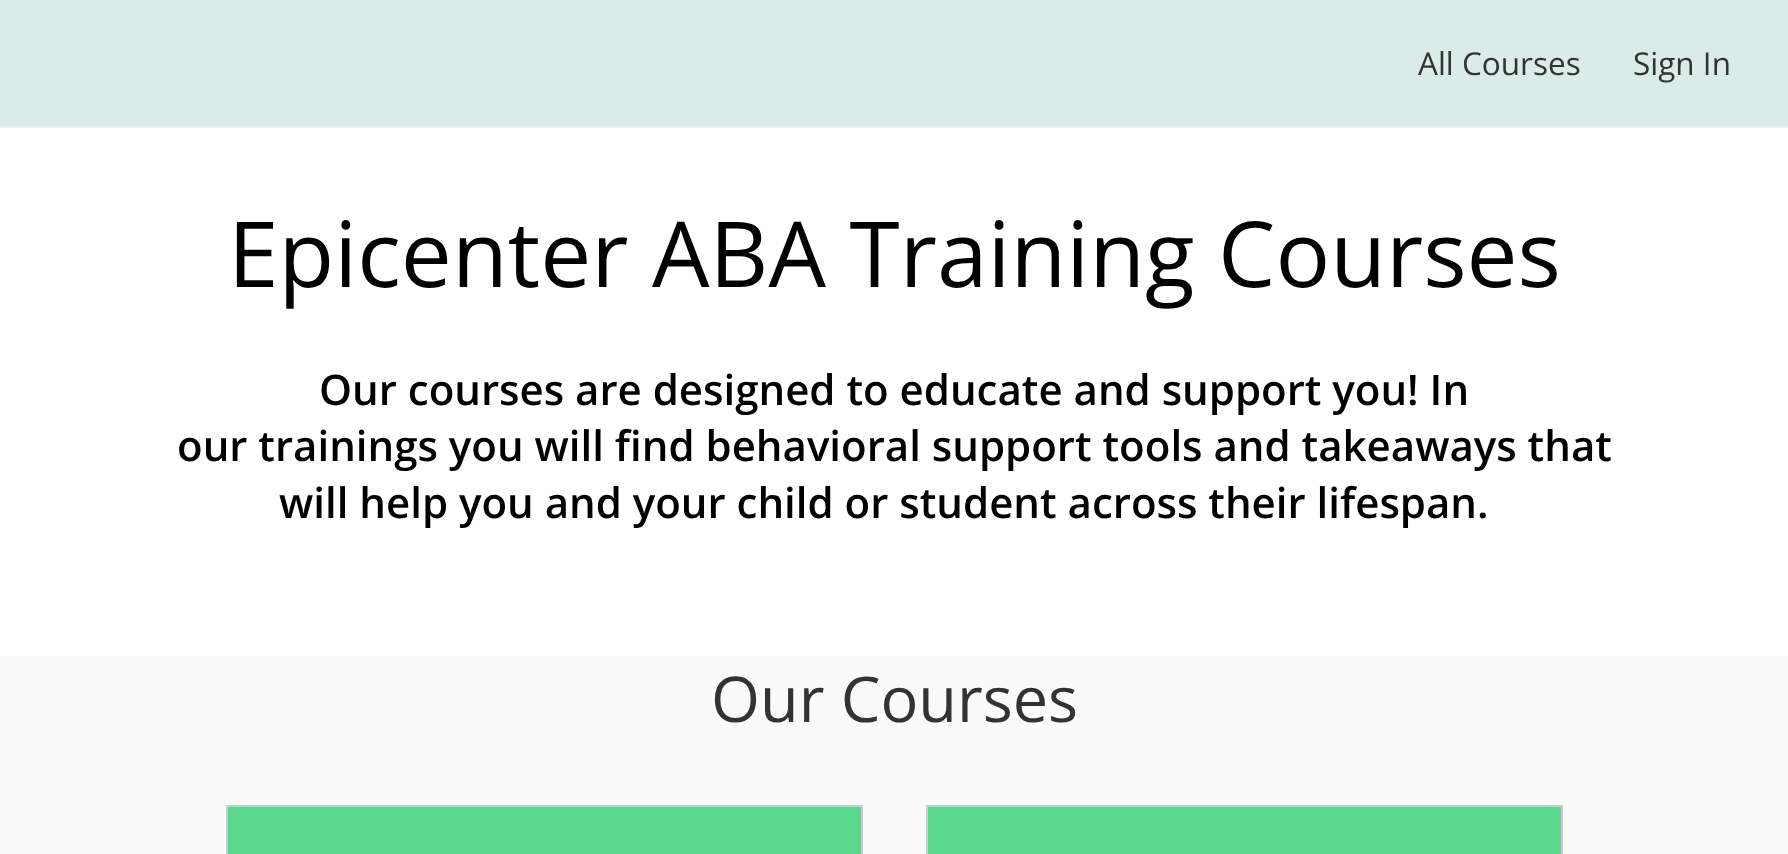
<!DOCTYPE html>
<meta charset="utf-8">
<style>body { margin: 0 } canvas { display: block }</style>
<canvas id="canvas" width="1788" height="854"></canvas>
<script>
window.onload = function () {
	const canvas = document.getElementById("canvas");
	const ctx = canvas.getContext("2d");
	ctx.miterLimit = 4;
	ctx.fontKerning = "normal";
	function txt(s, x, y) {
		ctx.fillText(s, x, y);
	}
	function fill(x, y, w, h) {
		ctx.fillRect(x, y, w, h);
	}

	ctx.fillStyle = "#FAFAFA";
	fill(0, 0, 1788, 854);
	ctx.fillStyle = "#DBEBE7";
	fill(0, 0, 1788, 126);
	ctx.fillStyle = "#EDF5F3";
	fill(0, 126, 1788, 2);
	ctx.fillStyle = "#FFFFFF";
	fill(0, 128, 1788, 528);
	ctx.fillStyle = "#5AD88D";
	ctx.beginPath();
	ctx.rect(227, 806, 635, 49);
	ctx.fill();
	ctx.strokeStyle = "#CACCD6";
	ctx.lineWidth = 2;
	ctx.stroke();
	ctx.beginPath();
	ctx.rect(927, 806, 635, 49);
	ctx.fill();
	ctx.stroke();
	ctx.font = "31.5px Open Sans";
	ctx.fillStyle = "#333333";
	txt("All Courses", 1418, 75);
	txt("Sign In", 1633, 75);
	ctx.font = "91px Open Sans";
	ctx.fillStyle = "#000000";
	txt("Epicenter ABA Training Courses", 228, 287);
	ctx.font = "600 42px Open Sans";
	txt("Our courses are designed to educate and support you! In", 319, 405);
	txt("our trainings you will find behavioral support tools and takeaways that", 177, 461);
	txt("will help you and your child or student across their lifespan.", 279, 518);
	ctx.font = "63px Open Sans";
	ctx.fillStyle = "#333333";
	txt("Our Courses", 711, 722);
};
</script>
